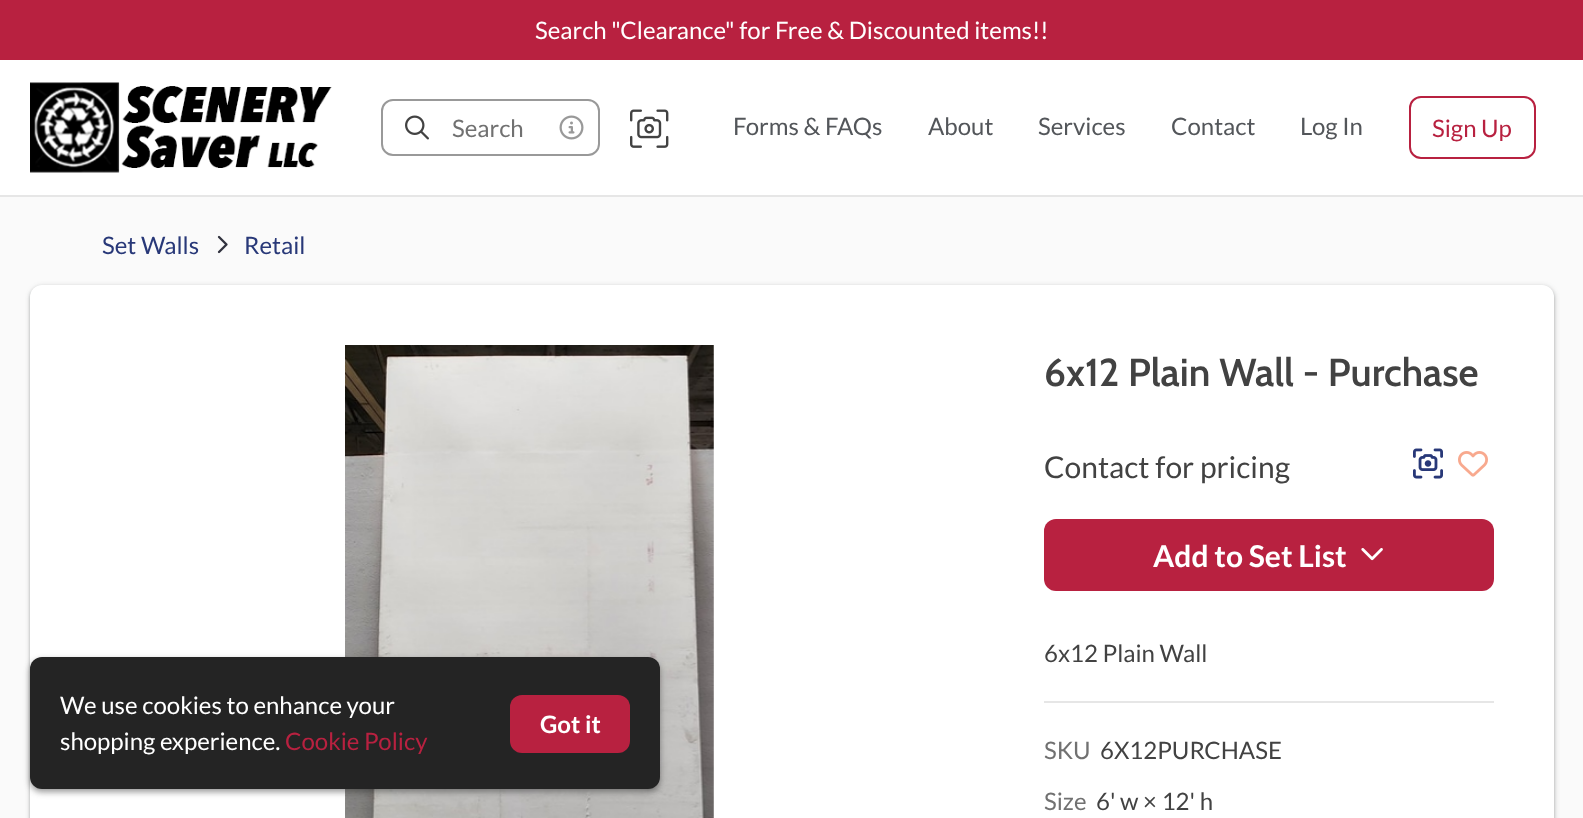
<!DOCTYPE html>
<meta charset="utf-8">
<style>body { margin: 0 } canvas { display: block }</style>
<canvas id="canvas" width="1583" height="818"></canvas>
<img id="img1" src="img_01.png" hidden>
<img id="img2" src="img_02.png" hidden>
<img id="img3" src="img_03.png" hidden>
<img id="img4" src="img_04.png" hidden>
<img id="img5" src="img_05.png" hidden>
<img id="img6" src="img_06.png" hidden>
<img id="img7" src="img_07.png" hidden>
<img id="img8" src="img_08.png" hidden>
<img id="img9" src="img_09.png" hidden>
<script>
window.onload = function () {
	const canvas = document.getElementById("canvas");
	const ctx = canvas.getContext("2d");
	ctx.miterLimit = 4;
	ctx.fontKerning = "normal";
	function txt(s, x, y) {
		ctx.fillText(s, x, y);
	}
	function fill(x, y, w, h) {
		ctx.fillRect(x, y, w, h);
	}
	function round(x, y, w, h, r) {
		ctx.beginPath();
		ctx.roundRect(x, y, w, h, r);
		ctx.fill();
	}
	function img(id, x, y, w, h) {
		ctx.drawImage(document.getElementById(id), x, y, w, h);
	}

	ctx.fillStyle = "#FFFFFF";
	fill(0, 0, 1583, 818);
	ctx.fillStyle = "#B82140";
	fill(0, 0, 1583, 60);
	img("img1", 30, 82, 302, 91);
	ctx.beginPath();
	ctx.roundRect(382, 100, 217, 55, 11);
	ctx.strokeStyle = "#999999";
	ctx.lineWidth = 2;
	ctx.stroke();
	img("img2", 405, 115, 24, 25);
	img("img3", 559, 115, 25, 25);
	img("img4", 630, 109, 39, 39);
	ctx.beginPath();
	ctx.roundRect(1410, 97, 125, 61, 11);
	ctx.strokeStyle = "#B82140";
	ctx.stroke();
	ctx.fillStyle = "#FAFAFA";
	fill(0, 197, 1583, 621);
	ctx.fillStyle = "#E6E6E6";
	fill(0, 195, 1583, 2);
	img("img5", 217, 235, 11, 19);
	ctx.fillStyle = "rgba(60, 64, 67, 0.15)";
	ctx.filter = "blur(2px)";
	ctx.beginPath();
	ctx.roundRect(29, 285, 1527, 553, 14);
	ctx.fill();
	ctx.filter = "none";
	ctx.fillStyle = "rgba(60, 64, 67, 0.3)";
	ctx.filter = "blur(1.5px)";
	ctx.beginPath();
	ctx.roundRect(30, 287, 1524, 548, 12);
	ctx.fill();
	ctx.filter = "none";
	ctx.fillStyle = "#FFFFFF";
	round(30, 285, 1524, 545, 12);
	img("img6", 345, 345, 369, 473);
	img("img7", 1413, 448, 30, 31);
	img("img8", 1458, 451, 30, 26);
	ctx.fillStyle = "#B82140";
	round(1044, 519, 450, 72, 12);
	img("img9", 1361, 548, 22, 13);
	ctx.fillStyle = "#E6E6E6";
	fill(1044, 701, 450, 2);
	ctx.fillStyle = "rgba(50, 50, 50, 0.5)";
	ctx.filter = "blur(3px)";
	ctx.beginPath();
	ctx.roundRect(30, 660, 630, 132, 12);
	ctx.fill();
	ctx.filter = "none";
	ctx.fillStyle = "#242424";
	round(30, 657, 630, 132, 12);
	ctx.fillStyle = "#B82140";
	round(510, 695, 120, 58, 12);
	ctx.font = "24px Lato";
	ctx.fillStyle = "#FFFFFF";
	txt("Search \"Clearance\" for Free & Discounted items!!", 535, 39);
	ctx.fillStyle = "#717171";
	txt("Search", 452, 137);
	ctx.fillStyle = "#53565A";
	txt("Forms & FAQs", 733, 135);
	txt("About", 928, 135);
	txt("Services", 1038, 135);
	txt("Contact", 1171, 135);
	txt("Log In", 1300, 135);
	ctx.fillStyle = "#B82140";
	txt("Sign Up", 1432, 137);
	ctx.fillStyle = "#283878";
	txt("Set Walls", 102, 254);
	txt("Retail", 244, 254);
	ctx.font = "600 39px Cabin";
	ctx.fillStyle = "#424242";
	txt("6x12 Plain Wall - Purchase", 1044, 386);
	ctx.font = "30px Lato";
	txt("Contact for pricing", 1044, 478);
	ctx.font = "bold 30px Lato";
	ctx.fillStyle = "#FFFFFF";
	txt("Add to Set List", 1153, 567);
	ctx.font = "24px Lato";
	ctx.fillStyle = "#424242";
	txt("6x12 Plain Wall", 1044, 662);
	ctx.fillStyle = "#717171";
	txt("SKU", 1044, 759);
	ctx.fillStyle = "#424242";
	txt("6X12PURCHASE", 1100, 759);
	ctx.fillStyle = "#717171";
	txt("Size", 1044, 810);
	ctx.fillStyle = "#424242";
	txt("6' w × 12' h", 1096, 810);
	ctx.fillStyle = "#FFFFFF";
	txt("We use cookies to enhance your", 60, 714);
	txt("shopping experience.", 60, 750);
	ctx.fillStyle = "#B82140";
	txt("Cookie Policy", 285, 750);
	ctx.font = "bold 24px Lato";
	ctx.fillStyle = "#FFFFFF";
	txt("Got it", 540, 733);
};
</script>
